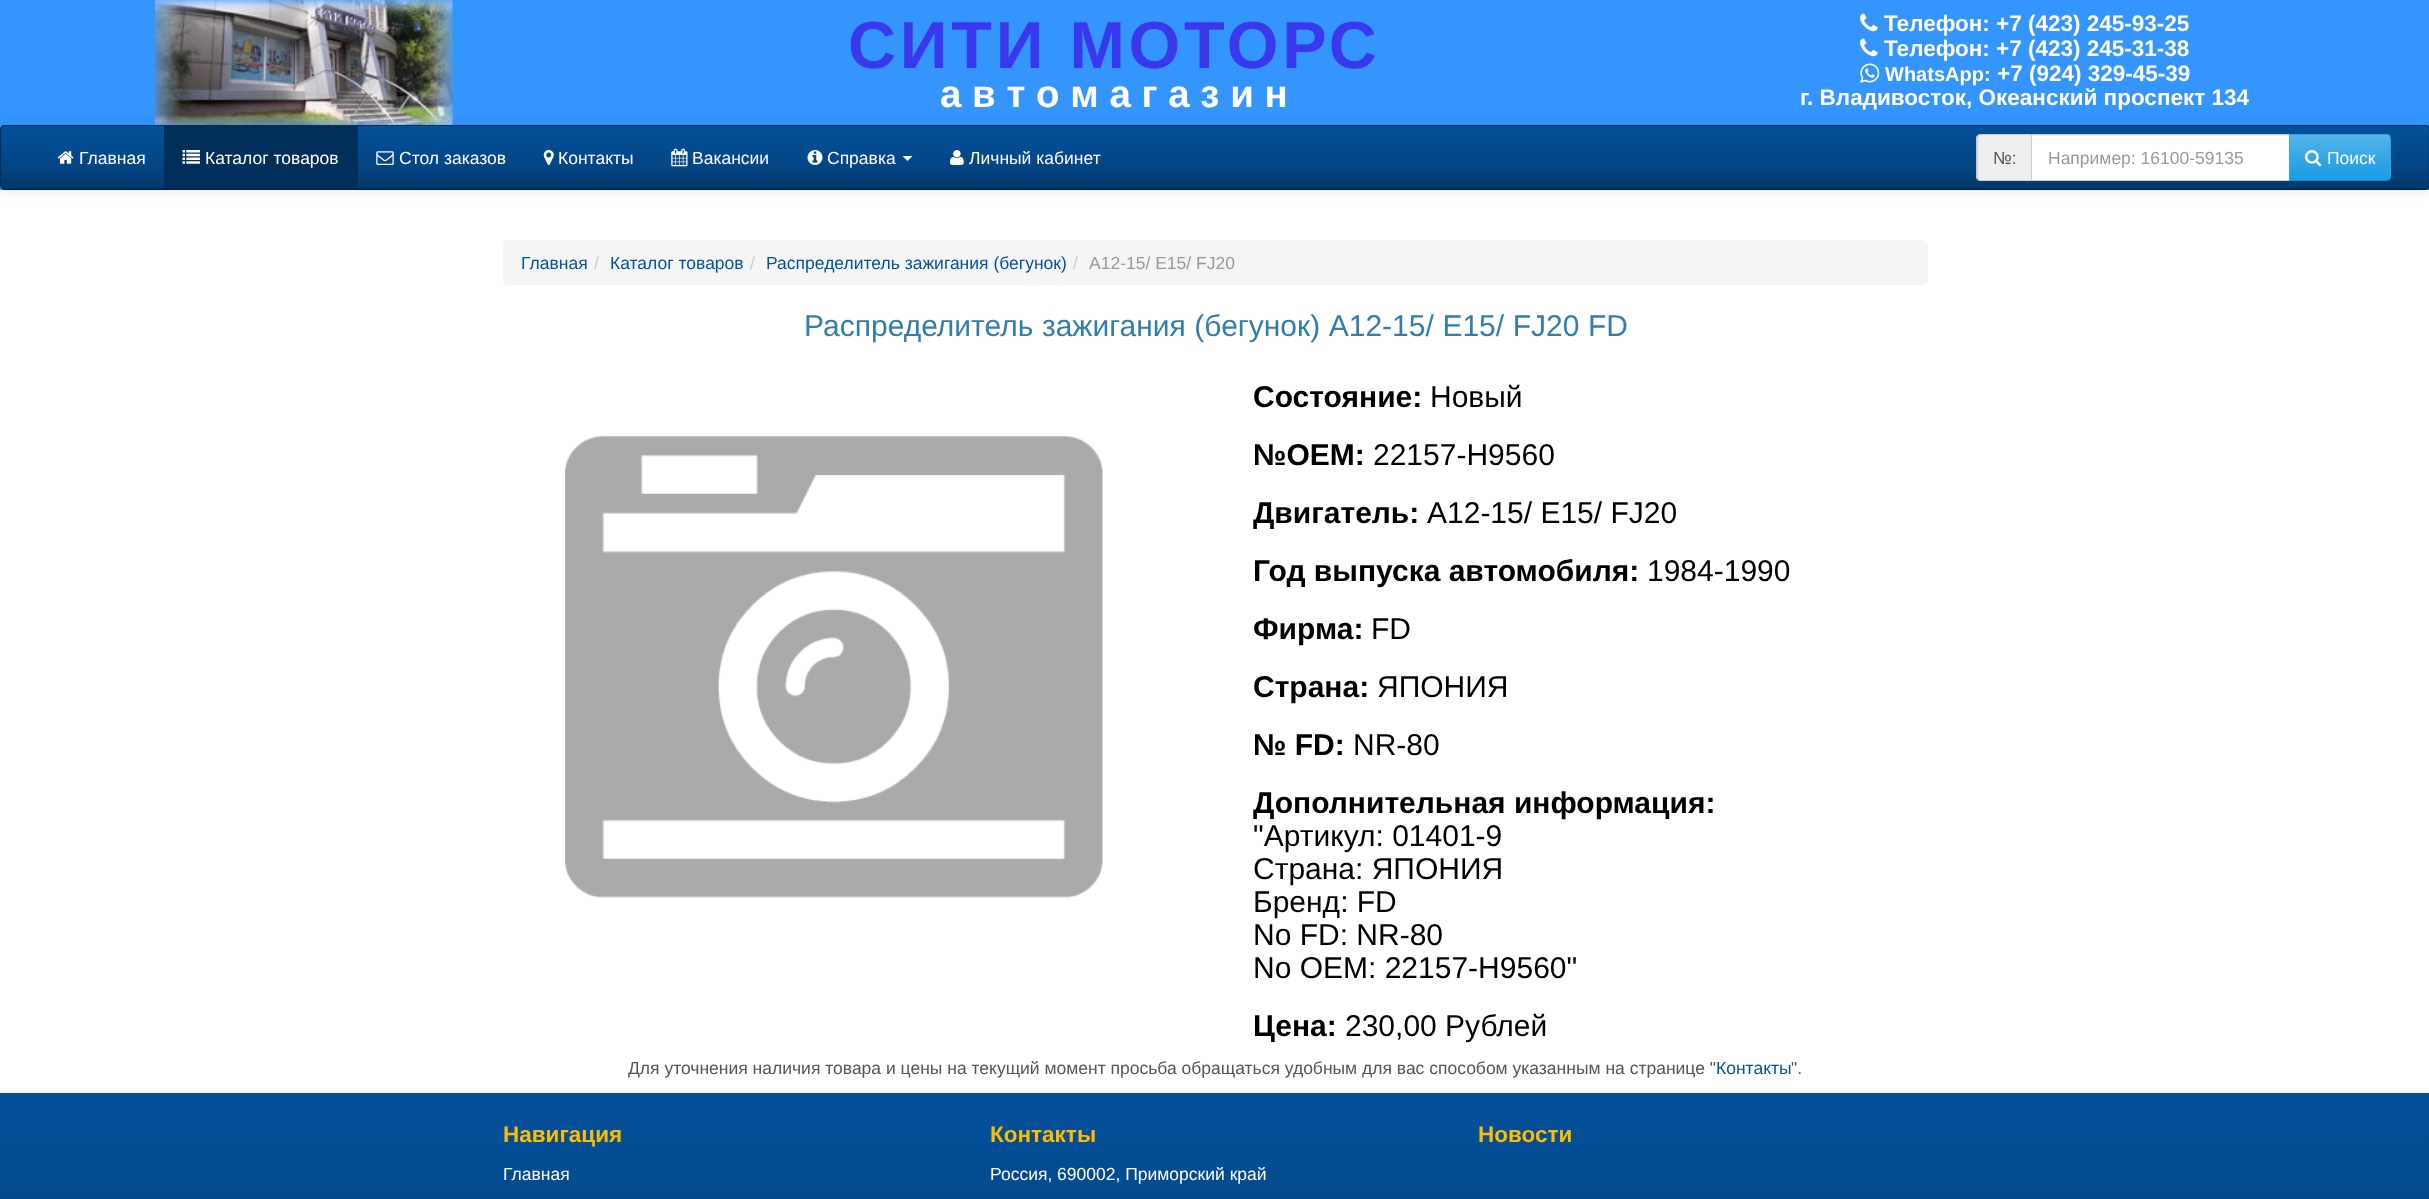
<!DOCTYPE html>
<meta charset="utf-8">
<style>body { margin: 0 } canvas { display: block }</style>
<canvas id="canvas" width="2429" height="1199"></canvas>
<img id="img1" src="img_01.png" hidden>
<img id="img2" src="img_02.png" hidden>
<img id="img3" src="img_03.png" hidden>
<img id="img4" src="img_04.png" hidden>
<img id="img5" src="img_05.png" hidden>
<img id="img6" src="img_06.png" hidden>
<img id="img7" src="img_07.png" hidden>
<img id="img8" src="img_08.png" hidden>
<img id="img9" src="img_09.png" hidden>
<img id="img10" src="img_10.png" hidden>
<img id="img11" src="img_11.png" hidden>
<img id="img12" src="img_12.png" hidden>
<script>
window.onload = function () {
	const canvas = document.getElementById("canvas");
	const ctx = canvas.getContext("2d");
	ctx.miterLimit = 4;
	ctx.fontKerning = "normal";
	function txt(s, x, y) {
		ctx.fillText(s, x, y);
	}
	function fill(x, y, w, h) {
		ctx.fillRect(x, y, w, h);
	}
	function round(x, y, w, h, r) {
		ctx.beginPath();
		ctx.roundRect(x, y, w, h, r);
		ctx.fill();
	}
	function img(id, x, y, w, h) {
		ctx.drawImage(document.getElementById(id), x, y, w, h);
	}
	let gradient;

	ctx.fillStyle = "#FFFFFF";
	fill(0, 0, 2429, 1199);
	ctx.fillStyle = "#3495FF";
	fill(0, 0, 2429, 190);
	img("img1", 155, 0, 298, 125);
	img("img2", 1860, 13, 18, 19);
	img("img2", 1860, 38, 18, 19);
	img("img3", 1860, 63, 20, 20);
	ctx.fillStyle = "rgba(0, 0, 0, 0.1)";
	ctx.filter = "blur(6px)";
	ctx.beginPath();
	ctx.roundRect(0, 126, 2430, 65, 5);
	ctx.fill();
	ctx.filter = "none";
	ctx.fillStyle = "#033C73";
	round(0, 125, 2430, 65, 5);
	ctx.save();
	ctx.beginPath();
	ctx.roundRect(0, 125, 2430, 65, 5);
	ctx.clip();
	gradient = ctx.createLinearGradient(1215, 126, 1215, 189);
	gradient.addColorStop(0, "#04519B");
	gradient.addColorStop(0.6, "#044687");
	gradient.addColorStop(1, "#033769");
	ctx.fillStyle = gradient;
	fill(1, 126, 2428, 63);
	ctx.restore();
	ctx.beginPath();
	ctx.moveTo(2428, 188);
	ctx.lineTo(2425, 189.5);
	ctx.lineTo(5, 189.5);
	ctx.lineTo(2, 188);
	ctx.strokeStyle = "#022241";
	ctx.lineWidth = 1.2;
	ctx.stroke();
	ctx.beginPath();
	ctx.moveTo(2, 188);
	ctx.lineTo(0.5, 185.5);
	ctx.lineTo(0.5, 129.5);
	ctx.lineTo(1.5, 127);
	ctx.bezierCurveTo(2.5, 126, 3.5, 125.5, 5, 125.5);
	ctx.lineTo(2425, 125.5);
	ctx.bezierCurveTo(2426.5, 125.5, 2427.5, 126, 2428.5, 127);
	ctx.lineTo(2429.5, 129.5);
	ctx.lineTo(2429.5, 185.5);
	ctx.lineTo(2428, 188);
	ctx.strokeStyle = "#022F5A";
	ctx.stroke();
	img("img4", 57, 151, 17, 13);
	ctx.fillStyle = "#022F5A";
	fill(164, 126, 194, 63);
	img("img5", 182, 150, 18, 14);
	img("img6", 376, 151, 18, 14);
	img("img7", 543, 150, 11, 15);
	img("img8", 671, 148, 17, 19);
	img("img9", 807, 150, 16, 15);
	ctx.fillStyle = "#FFFFFF";
	ctx.beginPath();
	ctx.moveTo(902.5, 156);
	ctx.lineTo(912.5, 156);
	ctx.lineTo(907.5, 161);
	ctx.closePath();
	ctx.fill();
	img("img10", 950, 150, 14, 15);
	ctx.fillStyle = "#EEEEEE";
	ctx.beginPath();
	ctx.roundRect(1976, 134, 55, 47, [5, 0, 0, 5]);
	ctx.fill();
	ctx.fillStyle = "#CCCCCC";
	ctx.beginPath();
	ctx.moveTo(1981, 134);
	ctx.lineTo(2031, 134);
	ctx.lineTo(2031, 181);
	ctx.lineTo(1981, 181);
	ctx.bezierCurveTo(1978, 181, 1976, 179, 1976, 176);
	ctx.lineTo(1976, 139);
	ctx.bezierCurveTo(1976, 136, 1978, 134, 1981, 134);
	ctx.closePath();
	ctx.moveTo(1981, 135);
	ctx.lineTo(2031, 135);
	ctx.lineTo(2031, 180);
	ctx.lineTo(1981, 180);
	ctx.bezierCurveTo(1979, 180, 1978, 178, 1978, 176);
	ctx.lineTo(1978, 139);
	ctx.bezierCurveTo(1978, 137, 1979, 135, 1981, 135);
	ctx.closePath();
	ctx.fill("evenodd");
	ctx.fillStyle = "#FFFFFF";
	fill(2032, 135, 257, 45);
	ctx.fillStyle = "#ECECEC";
	fill(2033, 135, 256, 1);
	ctx.strokeStyle = "#CCCCCC";
	ctx.lineWidth = 1;
	ctx.strokeRect(2031.5, 134.5, 258, 46);
	gradient = ctx.createLinearGradient(2340, 135, 2340, 180);
	gradient.addColorStop(0, "#54B4EB");
	gradient.addColorStop(0.6, "#2FA4E7");
	gradient.addColorStop(1, "#1D9CE5");
	ctx.fillStyle = gradient;
	fill(2290, 135, 100, 45);
	ctx.fillStyle = "#2FA4E7";
	ctx.beginPath();
	ctx.moveTo(2289, 134);
	ctx.lineTo(2290, 135);
	ctx.lineTo(2386, 135);
	ctx.lineTo(2389, 136);
	ctx.lineTo(2390, 135);
	ctx.bezierCurveTo(2389, 134, 2388, 134, 2386, 134);
	ctx.closePath();
	ctx.fill();
	ctx.beginPath();
	ctx.moveTo(2390, 135);
	ctx.bezierCurveTo(2390, 136, 2391, 138, 2391, 139);
	ctx.lineTo(2391, 176);
	ctx.bezierCurveTo(2391, 178, 2390, 179, 2390, 180);
	ctx.lineTo(2389, 179);
	ctx.bezierCurveTo(2390, 178, 2390, 177, 2390, 176);
	ctx.lineTo(2390, 139);
	ctx.bezierCurveTo(2390, 138, 2390, 137, 2389, 136);
	ctx.closePath();
	ctx.fill();
	ctx.fillStyle = "#178ACC";
	ctx.beginPath();
	ctx.moveTo(2390, 180);
	ctx.lineTo(2387, 181);
	ctx.lineTo(2289, 181);
	ctx.lineTo(2290, 180);
	ctx.lineTo(2386, 180);
	ctx.lineTo(2389, 179);
	ctx.closePath();
	ctx.fill();
	ctx.fillStyle = "#2FA4E7";
	ctx.beginPath();
	ctx.moveTo(2290, 135);
	ctx.lineTo(2289, 134);
	ctx.lineTo(2289, 181);
	ctx.lineTo(2290, 180);
	ctx.closePath();
	ctx.fill();
	img("img11", 2305, 150, 17, 17);
	ctx.fillStyle = "#F5F5F5";
	round(503, 240, 1425, 45, 5);
	img("img12", 565, 436, 538, 462);
	gradient = ctx.createLinearGradient(1215, 1092, 1215, 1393);
	gradient.addColorStop(0, "#04519B");
	gradient.addColorStop(0.6, "#044687");
	gradient.addColorStop(1, "#033769");
	ctx.fillStyle = gradient;
	fill(0, 1093, 2429, 106);
	ctx.letterSpacing = "3.75px";
	ctx.font = "bold 66.5px Liberation Sans";
	ctx.fillStyle = "#3A38ED";
	txt("СИТИ МОТОРС", 848, 68);
	ctx.letterSpacing = "0px";
	ctx.font = "bold 38.5px Liberation Sans";
	ctx.fillStyle = "#FFFFFF";
	txt("а в т о м а г а з и н", 940, 107);
	ctx.font = "bold 22.5px Liberation Sans";
	txt("Телефон: +7 (423) 245-93-25", 1884, 31);
	txt("Телефон: +7 (423) 245-31-38", 1884, 56);
	ctx.font = "bold 20px Liberation Sans";
	txt("WhatsApp:", 1885, 81);
	ctx.font = "bold 22.5px Liberation Sans";
	txt("+7 (924) 329-45-39", 1997, 81);
	txt("г. Владивосток, Океанский проспект 134", 1800, 105);
	ctx.font = "17.5px Liberation Sans";
	txt("Главная", 79, 164);
	txt("Каталог товаров", 205, 164);
	txt("Стол заказов", 399, 164);
	txt("Контакты", 558, 164);
	txt("Вакансии", 692, 164);
	txt("Справка", 827, 164);
	txt("Личный кабинет", 969, 164);
	ctx.fillStyle = "#555555";
	txt("№:", 1993, 164);
	ctx.fillStyle = "#999999";
	txt("Например: 16100-59135", 2048, 164);
	ctx.fillStyle = "#FFFFFF";
	txt("Поиск", 2327, 164);
	ctx.fillStyle = "#04519B";
	txt("Главная", 521, 269);
	ctx.fillStyle = "#CCCCCC";
	txt("/", 594, 269);
	ctx.fillStyle = "#04519B";
	txt("Каталог товаров", 610, 269);
	ctx.fillStyle = "#CCCCCC";
	txt("/", 750, 269);
	ctx.fillStyle = "#04519B";
	txt("Распределитель зажигания (бегунок)", 766, 269);
	ctx.fillStyle = "#CCCCCC";
	txt("/", 1073, 269);
	ctx.fillStyle = "#999999";
	txt("A12-15/ E15/ FJ20", 1089, 269);
	ctx.wordSpacing = "0.25px";
	ctx.font = "30px Liberation Sans";
	ctx.fillStyle = "#317EAC";
	txt("Распределитель зажигания (бегунок) A12-15/ E15/ FJ20 FD", 804, 336);
	ctx.wordSpacing = "0px";
	ctx.font = "bold 30px Liberation Sans";
	ctx.fillStyle = "#000000";
	txt("Состояние:", 1253, 407);
	ctx.font = "30px Liberation Sans";
	txt("Новый", 1430, 407);
	ctx.font = "bold 30px Liberation Sans";
	txt("№OEM:", 1253, 465);
	ctx.font = "30px Liberation Sans";
	txt("22157-H9560", 1373, 465);
	ctx.font = "bold 30px Liberation Sans";
	txt("Двигатель:", 1253, 523);
	ctx.font = "30px Liberation Sans";
	txt("A12-15/ E15/ FJ20", 1427, 523);
	ctx.font = "bold 30px Liberation Sans";
	txt("Год выпуска автомобиля:", 1253, 581);
	ctx.font = "30px Liberation Sans";
	txt("1984-1990", 1647, 581);
	ctx.font = "bold 30px Liberation Sans";
	txt("Фирма:", 1253, 639);
	ctx.font = "30px Liberation Sans";
	txt("FD", 1371, 639);
	ctx.font = "bold 30px Liberation Sans";
	txt("Страна:", 1253, 697);
	ctx.font = "30px Liberation Sans";
	txt("ЯПОНИЯ", 1377, 697);
	ctx.font = "bold 30px Liberation Sans";
	txt("№ FD:", 1253, 755);
	ctx.font = "30px Liberation Sans";
	txt("NR-80", 1353, 755);
	ctx.font = "bold 30px Liberation Sans";
	txt("Дополнительная информация:", 1253, 813);
	ctx.font = "30px Liberation Sans";
	txt("\"Артикул: 01401-9", 1253, 846);
	txt("Страна: ЯПОНИЯ", 1253, 879);
	txt("Бренд: FD", 1253, 912);
	txt("No FD: NR-80", 1253, 945);
	txt("No OEM: 22157-H9560\"", 1253, 978);
	ctx.font = "bold 30px Liberation Sans";
	txt("Цена:", 1253, 1036);
	ctx.font = "30px Liberation Sans";
	txt("230,00 Рублей", 1345, 1036);
	ctx.font = "17.5px Liberation Sans";
	ctx.fillStyle = "#555555";
	txt("Для уточнения наличия товара и цены на текущий момент просьба обращаться удобным для вас способом указанным на странице \"", 628, 1074);
	ctx.fillStyle = "#04519B";
	txt("Контакты", 1716, 1074);
	ctx.fillStyle = "#555555";
	txt("\".", 1791, 1074);
	ctx.font = "bold 22.5px Liberation Sans";
	ctx.fillStyle = "#FFBB00";
	txt("Навигация", 503, 1142);
	ctx.font = "17.5px Liberation Sans";
	ctx.fillStyle = "#FFFFFF";
	txt("Главная", 503, 1180);
	ctx.font = "bold 22.5px Liberation Sans";
	ctx.fillStyle = "#FFBB00";
	txt("Контакты", 990, 1142);
	ctx.font = "17.5px Liberation Sans";
	ctx.fillStyle = "#FFFFFF";
	txt("Россия, 690002, Приморский край", 990, 1180);
	ctx.font = "bold 22.5px Liberation Sans";
	ctx.fillStyle = "#FFBB00";
	txt("Новости", 1478, 1142);
};
</script>
